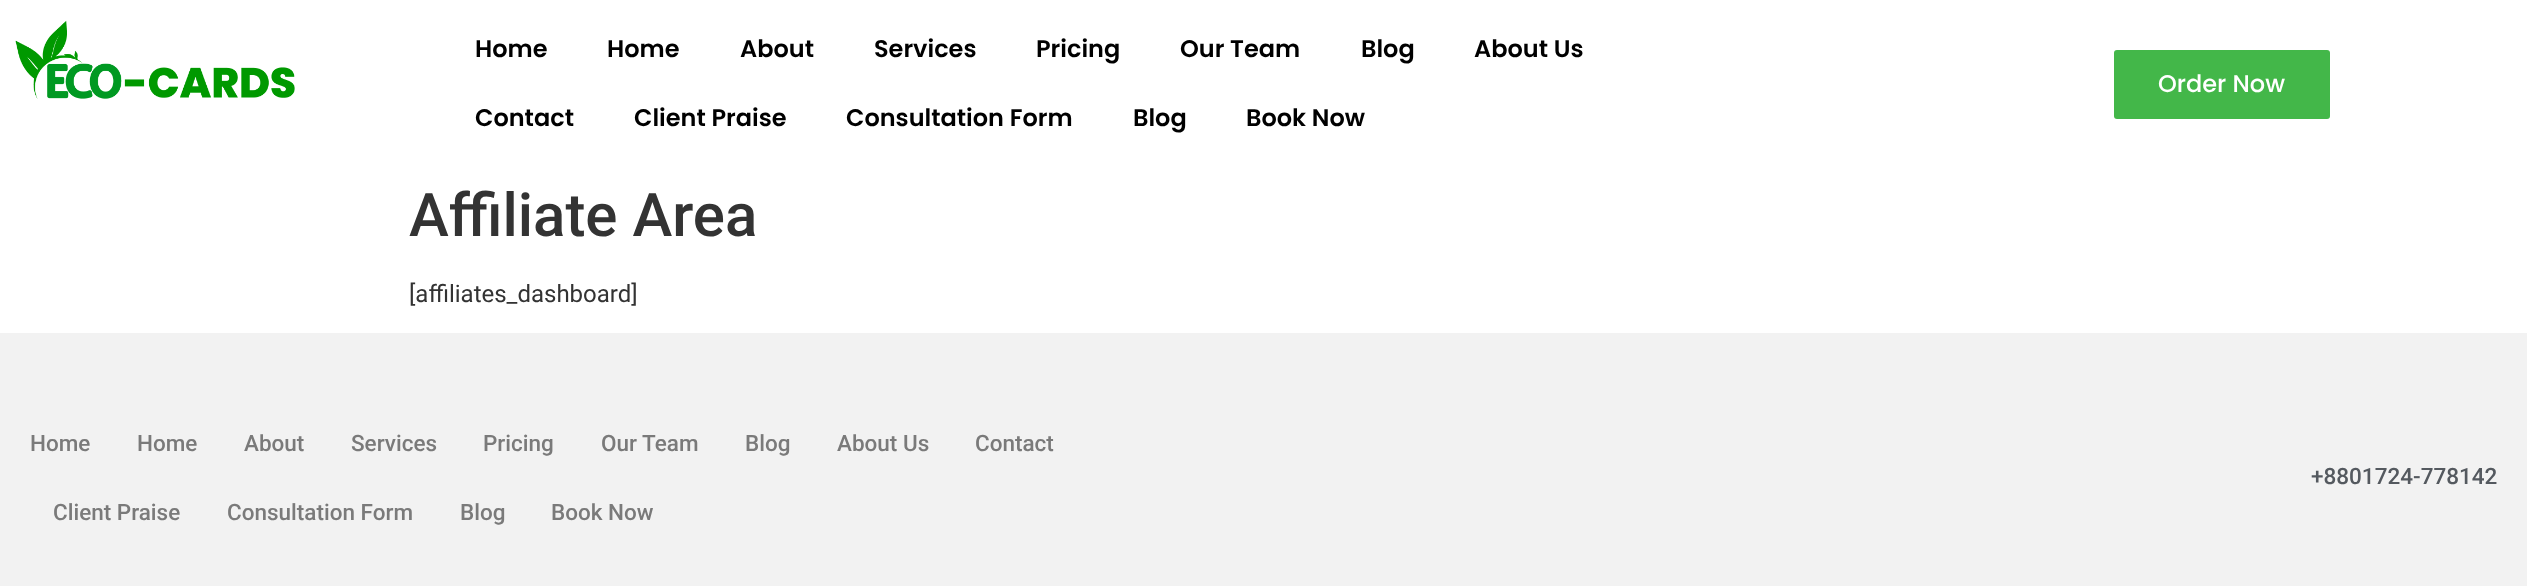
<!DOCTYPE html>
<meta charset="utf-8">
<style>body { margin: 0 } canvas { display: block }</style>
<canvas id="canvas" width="2527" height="586"></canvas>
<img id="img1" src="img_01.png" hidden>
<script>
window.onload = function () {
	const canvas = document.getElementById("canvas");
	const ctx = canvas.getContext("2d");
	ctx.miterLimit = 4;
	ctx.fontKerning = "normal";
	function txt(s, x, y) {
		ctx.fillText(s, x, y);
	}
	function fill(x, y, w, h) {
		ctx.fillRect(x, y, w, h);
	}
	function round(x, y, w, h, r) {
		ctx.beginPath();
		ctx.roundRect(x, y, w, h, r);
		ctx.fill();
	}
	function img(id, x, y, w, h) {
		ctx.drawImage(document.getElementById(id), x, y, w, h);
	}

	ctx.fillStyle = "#FFFFFF";
	fill(0, 0, 2527, 586);
	img("img1", 15, 20, 280, 79);
	ctx.fillStyle = "#43B749";
	round(2114, 50, 216, 69, 3);
	ctx.fillStyle = "#F2F2F2";
	fill(0, 333, 2527, 253);
	ctx.font = "600 24px Poppins";
	ctx.fillStyle = "#000000";
	txt("Home", 475, 57);
	txt("Home", 607, 57);
	txt("About", 740, 57);
	txt("Services", 874, 57);
	txt("Pricing", 1036, 57);
	txt("Our Team", 1180, 57);
	txt("Blog", 1361, 57);
	txt("About Us", 1474, 57);
	txt("Contact", 475, 126);
	txt("Client Praise", 634, 126);
	txt("Consultation Form", 846, 126);
	txt("Blog", 1133, 126);
	txt("Book Now", 1246, 126);
	ctx.font = "500 24px Poppins";
	ctx.fillStyle = "#FFFFFF";
	txt("Order Now", 2158, 92);
	ctx.font = "500 60px Roboto";
	ctx.fillStyle = "#333333";
	txt("Affiliate Area", 409, 236);
	ctx.font = "24px Roboto";
	txt("[affiliates_dashboard]", 409, 302);
	ctx.font = "500 22.5px Roboto";
	ctx.fillStyle = "#7A7A7A";
	txt("Home", 30, 451);
	txt("Home", 137, 451);
	txt("About", 244, 451);
	txt("Services", 351, 451);
	txt("Pricing", 483, 451);
	txt("Our Team", 601, 451);
	txt("Blog", 745, 451);
	txt("About Us", 837, 451);
	txt("Contact", 975, 451);
	txt("Client Praise", 53, 520);
	txt("Consultation Form", 227, 520);
	txt("Blog", 460, 520);
	txt("Book Now", 551, 520);
	ctx.fillStyle = "#54595F";
	txt("+8801724-778142", 2311, 484);
};
</script>
